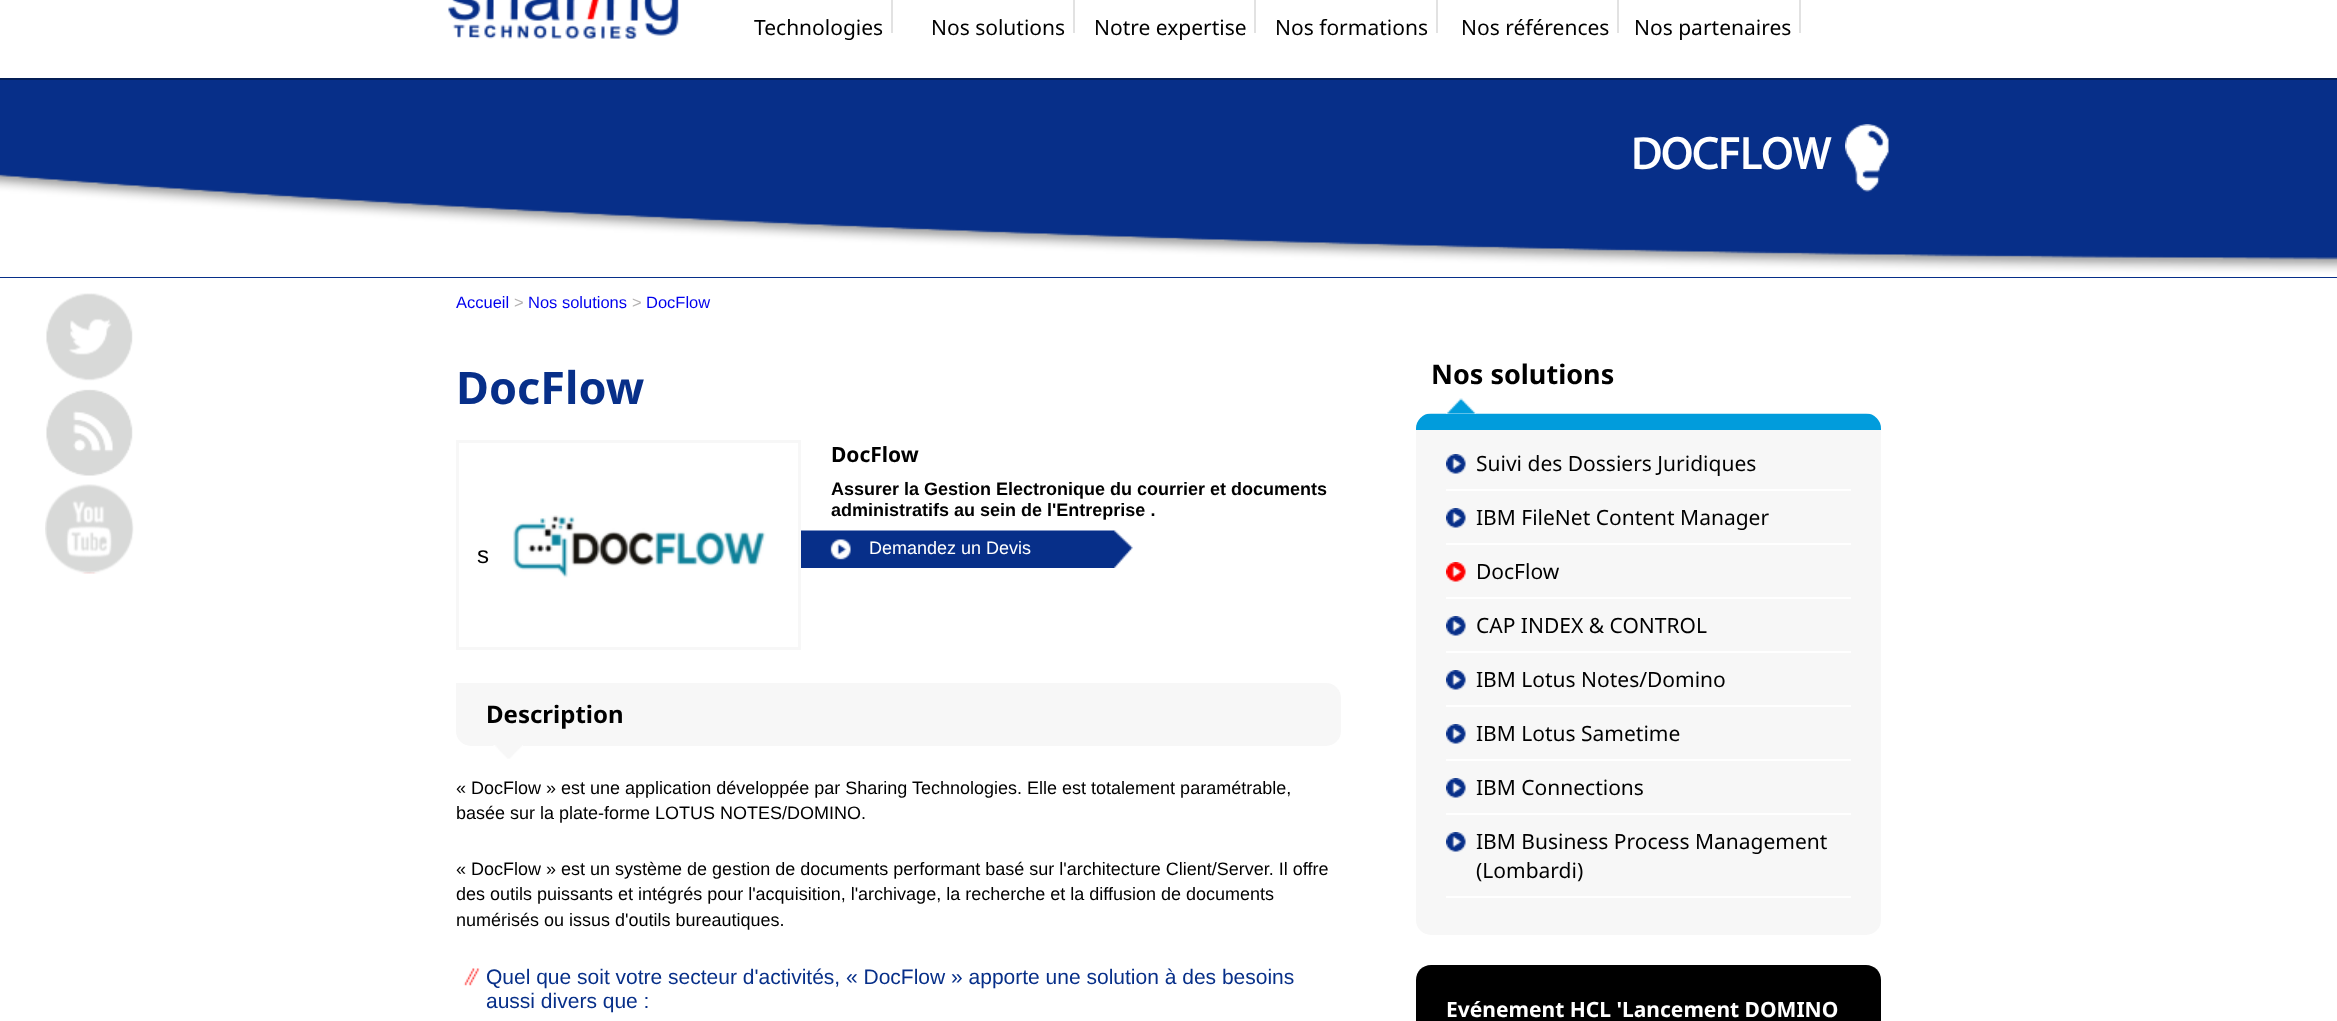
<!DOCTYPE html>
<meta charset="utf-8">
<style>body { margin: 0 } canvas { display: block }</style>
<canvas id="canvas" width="2337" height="1021"></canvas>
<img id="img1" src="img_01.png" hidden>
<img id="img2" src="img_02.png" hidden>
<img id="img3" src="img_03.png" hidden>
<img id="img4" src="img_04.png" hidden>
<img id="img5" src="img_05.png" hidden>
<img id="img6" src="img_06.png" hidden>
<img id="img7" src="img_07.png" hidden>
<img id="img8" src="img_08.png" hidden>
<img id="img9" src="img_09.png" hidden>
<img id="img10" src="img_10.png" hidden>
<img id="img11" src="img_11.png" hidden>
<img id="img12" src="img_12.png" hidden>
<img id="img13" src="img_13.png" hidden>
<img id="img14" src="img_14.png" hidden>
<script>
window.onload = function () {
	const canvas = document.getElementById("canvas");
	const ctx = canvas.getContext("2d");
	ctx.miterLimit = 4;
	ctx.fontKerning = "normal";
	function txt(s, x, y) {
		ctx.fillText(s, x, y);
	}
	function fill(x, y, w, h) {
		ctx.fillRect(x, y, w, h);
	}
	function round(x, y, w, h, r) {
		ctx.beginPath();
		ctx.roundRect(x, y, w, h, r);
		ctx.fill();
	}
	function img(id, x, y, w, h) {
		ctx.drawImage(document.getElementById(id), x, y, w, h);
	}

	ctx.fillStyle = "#FFFFFF";
	fill(0, 0, 2337, 1021);
	ctx.fillStyle = "#041E56";
	fill(0, 78, 2337, 2);
	img("img1", 448, 0, 231, 39);
	ctx.fillStyle = "#E2E2E2";
	fill(891, 0, 2, 33);
	fill(1073, 0, 2, 33);
	fill(1254, 0, 2, 33);
	fill(1436, 0, 2, 33);
	fill(1617, 0, 2, 33);
	fill(1799, 0, 2, 33);
	ctx.fillStyle = "#072F89";
	fill(0, 80, 2337, 198);
	img("img2", 1845, 124, 44, 68);
	img("img3", 0, 174, 2337, 103);
	img("img4", 46, 293, 87, 88);
	img("img5", 46, 389, 87, 87);
	img("img6", 45, 484, 89, 90);
	img("img7", 801, 530, 332, 38);
	ctx.strokeStyle = "#F7F7F7";
	ctx.lineWidth = 3;
	ctx.strokeRect(457.5, 441.5, 342, 207);
	img("img8", 513, 515, 253, 63);
	ctx.fillStyle = "#F7F7F7";
	ctx.beginPath();
	ctx.roundRect(456, 683, 885, 63, [0, 15, 15, 15]);
	ctx.fill();
	img("img9", 493, 745, 30, 14);
	img("img10", 463, 968, 17, 18);
	round(1416, 414, 465, 521, 15);
	img("img11", 1416, 413, 465, 17);
	img("img12", 1446, 398, 30, 16);
	ctx.fillStyle = "#FFFFFF";
	fill(1446, 489, 405, 2);
	img("img13", 1446, 454, 20, 20);
	fill(1446, 543, 405, 2);
	img("img13", 1446, 508, 20, 20);
	fill(1446, 597, 405, 2);
	img("img14", 1446, 562, 20, 20);
	fill(1446, 651, 405, 2);
	img("img13", 1446, 616, 20, 20);
	fill(1446, 705, 405, 2);
	img("img13", 1446, 670, 20, 20);
	fill(1446, 759, 405, 2);
	img("img13", 1446, 724, 20, 20);
	fill(1446, 813, 405, 2);
	img("img13", 1446, 778, 20, 20);
	fill(1446, 896, 405, 2);
	img("img13", 1446, 832, 20, 20);
	ctx.fillStyle = "#000000";
	ctx.beginPath();
	ctx.moveTo(1431, 965);
	ctx.lineTo(1866, 965);
	ctx.bezierCurveTo(1874.5, 965, 1881, 971.5, 1881, 980);
	ctx.lineTo(1881, 1021);
	ctx.bezierCurveTo(1881, 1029.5, 1874.5, 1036, 1866, 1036);
	ctx.lineTo(1416, 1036);
	ctx.lineTo(1416, 980);
	ctx.bezierCurveTo(1416, 971.5, 1422.5, 965, 1431, 965);
	ctx.closePath();
	ctx.fill();
	ctx.font = "21px Noto Sans";
	txt("Technologies", 754, 35);
	txt("Nos solutions", 931, 35);
	txt("Notre expertise", 1094, 35);
	txt("Nos formations", 1275, 35);
	txt("Nos références", 1461, 35);
	txt("Nos partenaires", 1634, 35);
	ctx.font = "bold 45px Myriad";
	ctx.fillStyle = "#FFFFFF";
	txt("DOCFLOW", 1631, 169);
	ctx.font = "16.5px Liberation Sans";
	ctx.fillStyle = "#0000EE";
	txt("Accueil", 456, 308);
	ctx.fillStyle = "#B5B3B3";
	txt(">", 514, 308);
	ctx.fillStyle = "#0000EE";
	txt("Nos solutions", 528, 308);
	ctx.fillStyle = "#B5B3B3";
	txt(">", 632, 308);
	ctx.fillStyle = "#0000EE";
	txt("DocFlow", 646, 308);
	ctx.font = "bold 45px Noto Sans";
	ctx.fillStyle = "#072F89";
	txt("DocFlow", 456, 404);
	ctx.font = "bold 21px Noto Sans";
	ctx.fillStyle = "#000000";
	txt("DocFlow", 831, 462);
	ctx.font = "bold 18px Liberation Sans";
	txt("Assurer la Gestion Electronique du courrier et documents", 831, 495);
	txt("administratifs au sein de l'Entreprise .", 831, 516);
	ctx.font = "18px Liberation Sans";
	ctx.fillStyle = "#FFFFFF";
	txt("Demandez un Devis", 869, 554);
	ctx.font = "24px Liberation Sans";
	ctx.fillStyle = "#000000";
	txt("s", 477, 563);
	ctx.font = "bold 24px Noto Sans";
	txt("Description", 486, 723);
	ctx.font = "18px Liberation Sans";
	txt("« DocFlow » est une application développée par Sharing Technologies. Elle est totalement paramétrable,", 456, 794);
	txt("basée sur la plate-forme LOTUS NOTES/DOMINO.", 456, 819);
	txt("« DocFlow » est un système de gestion de documents performant basé sur l'architecture Client/Server. Il offre", 456, 875);
	txt("des outils puissants et intégrés pour l'acquisition, l'archivage, la recherche et la diffusion de documents", 456, 900);
	txt("numérisés ou issus d'outils bureautiques.", 456, 926);
	ctx.font = "21px Liberation Sans";
	ctx.fillStyle = "#072F89";
	txt("Quel que soit votre secteur d'activités, « DocFlow » apporte une solution à des besoins", 486, 984);
	txt("aussi divers que :", 486, 1008);
	ctx.font = "bold 27px Noto Sans";
	ctx.fillStyle = "#000000";
	txt("Nos solutions", 1431, 384);
	ctx.font = "21px Noto Sans";
	txt("Suivi des Dossiers Juridiques", 1476, 471);
	txt("IBM FileNet Content Manager", 1476, 525);
	txt("DocFlow", 1476, 579);
	txt("CAP INDEX & CONTROL", 1476, 633);
	txt("IBM Lotus Notes/Domino", 1476, 687);
	txt("IBM Lotus Sametime", 1476, 741);
	txt("IBM Connections", 1476, 795);
	txt("IBM Business Process Management", 1476, 849);
	txt("(Lombardi)", 1476, 878);
	ctx.font = "bold 21px Noto Sans";
	ctx.fillStyle = "#FFFFFF";
	txt("Evénement HCL 'Lancement DOMINO", 1446, 1017);
};
</script>
